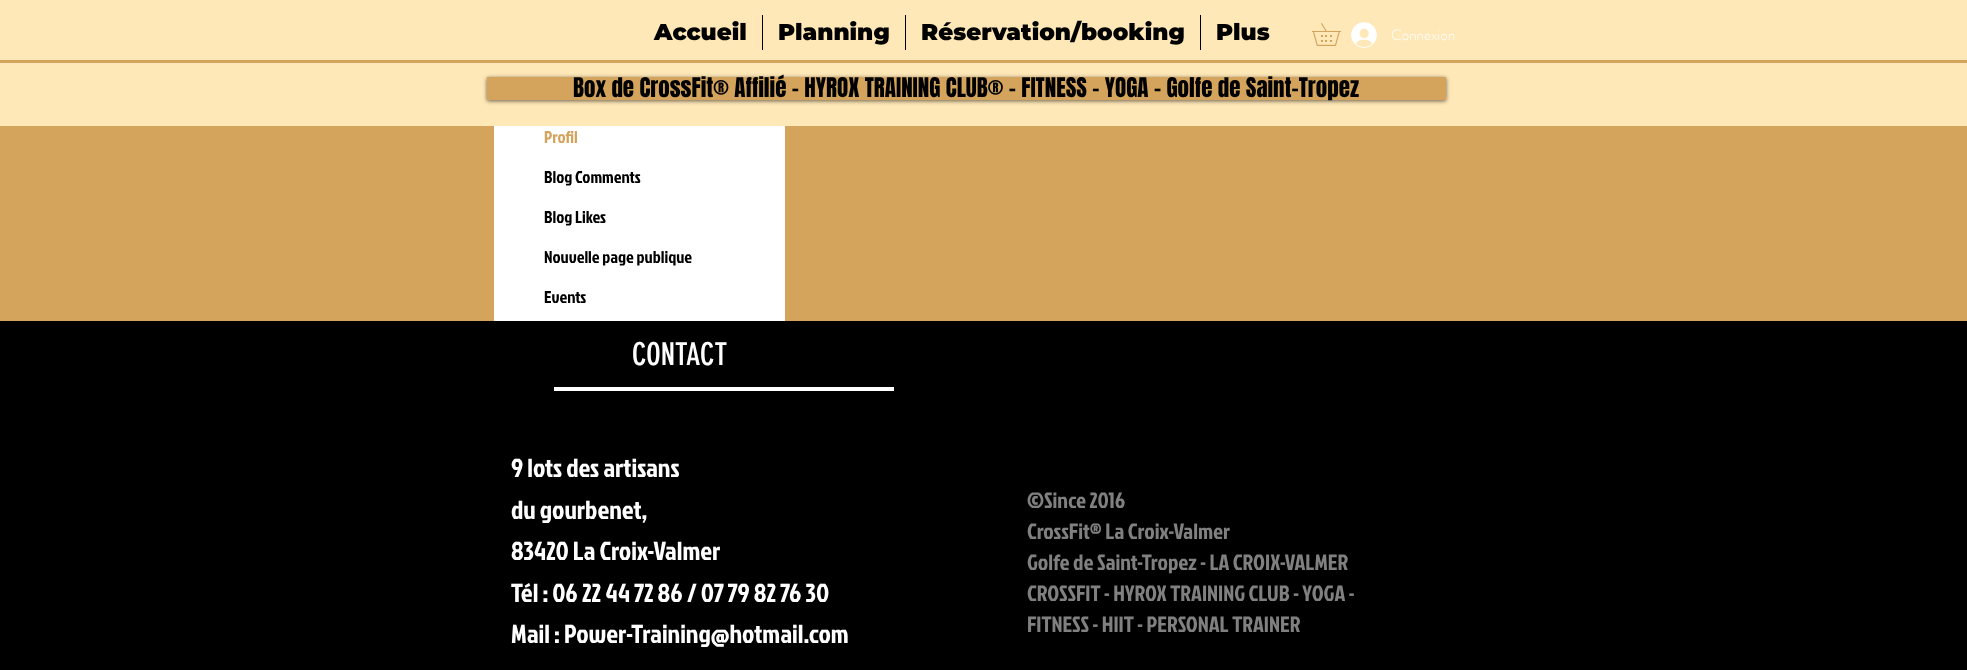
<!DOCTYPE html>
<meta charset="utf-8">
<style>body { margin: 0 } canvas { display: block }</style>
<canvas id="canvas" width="1967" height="670"></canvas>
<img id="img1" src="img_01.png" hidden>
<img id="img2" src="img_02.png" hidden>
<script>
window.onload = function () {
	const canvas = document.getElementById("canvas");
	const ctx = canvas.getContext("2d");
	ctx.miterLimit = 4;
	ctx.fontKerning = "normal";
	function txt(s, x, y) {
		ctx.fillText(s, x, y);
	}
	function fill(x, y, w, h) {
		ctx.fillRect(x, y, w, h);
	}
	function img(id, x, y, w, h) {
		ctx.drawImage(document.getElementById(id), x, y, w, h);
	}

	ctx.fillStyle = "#D4A45D";
	fill(0, 0, 1967, 670);
	ctx.fillStyle = "#FFE8B8";
	fill(0, 0, 1967, 126);
	ctx.fillStyle = "#000000";
	fill(762, 15, 1, 35);
	fill(905, 15, 1, 35);
	fill(1200, 15, 1, 35);
	img("img1", 1312, 23, 29, 23);
	img("img2", 1351, 22, 26, 26);
	ctx.fillStyle = "#D4A45D";
	fill(0, 60, 1967, 3);
	ctx.fillStyle = "rgba(0, 0, 0, 0.6)";
	ctx.filter = "blur(2px)";
	ctx.beginPath();
	ctx.rect(487, 78, 959, 23);
	ctx.fill();
	ctx.filter = "none";
	ctx.fillStyle = "#D4A45D";
	fill(487, 77, 959, 23);
	ctx.fillStyle = "#FFFFFF";
	fill(494, 126, 291, 195);
	ctx.fillStyle = "#000000";
	fill(0, 321, 1967, 349);
	ctx.fillStyle = "#FFFFFF";
	fill(554, 387, 340, 4);
	ctx.font = "100 23px Montserrat";
	ctx.fillStyle = "#000000";
	txt("Accueil", 654, 40);
	txt("Planning", 778, 40);
	txt("Réservation/booking", 921, 40);
	txt("Plus", 1216, 40);
	ctx.font = "300 15px 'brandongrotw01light'";
	ctx.fillStyle = "#FFFFFF";
	txt("Connexion", 1391, 40);
	ctx.font = "23px Anton";
	ctx.fillStyle = "#000000";
	txt("Box de CrossFit® Affilié - HYROX TRAINING CLUB® - FITNESS - YOGA - Golfe de Saint-Tropez", 573, 97);
	ctx.font = "17px Jockey One";
	ctx.fillStyle = "#D4A45D";
	txt("Profil", 544, 143);
	ctx.fillStyle = "#000000";
	txt("Blog Comments", 544, 183);
	txt("Blog Likes", 544, 223);
	txt("Nouvelle page publique", 544, 263);
	txt("Events", 544, 303);
	ctx.font = "31px 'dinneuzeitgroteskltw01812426'";
	ctx.fillStyle = "#FFFFFF";
	txt("CONTACT", 632, 365);
	ctx.font = "26px Jockey One";
	txt("9 lots des artisans", 511, 477);
	txt("du gourbenet,", 511, 519);
	txt("83420 La Croix-Valmer", 511, 560);
	txt("Tél : 06 22 44 72 86 / 07 79 82 76 30", 511, 602);
	txt("Mail : Power-Training@hotmail.com", 511, 643);
	ctx.font = "22px Jockey One";
	ctx.fillStyle = "#808080";
	txt("©Since 2016", 1027, 508);
	txt("CrossFit® La Croix-Valmer", 1027, 539);
	txt("Golfe de Saint-Tropez - LA CROIX-VALMER", 1027, 570);
	txt("CROSSFIT - HYROX TRAINING CLUB - YOGA -", 1027, 601);
	txt("FITNESS - HIIT - PERSONAL TRAINER", 1027, 632);
};
</script>
